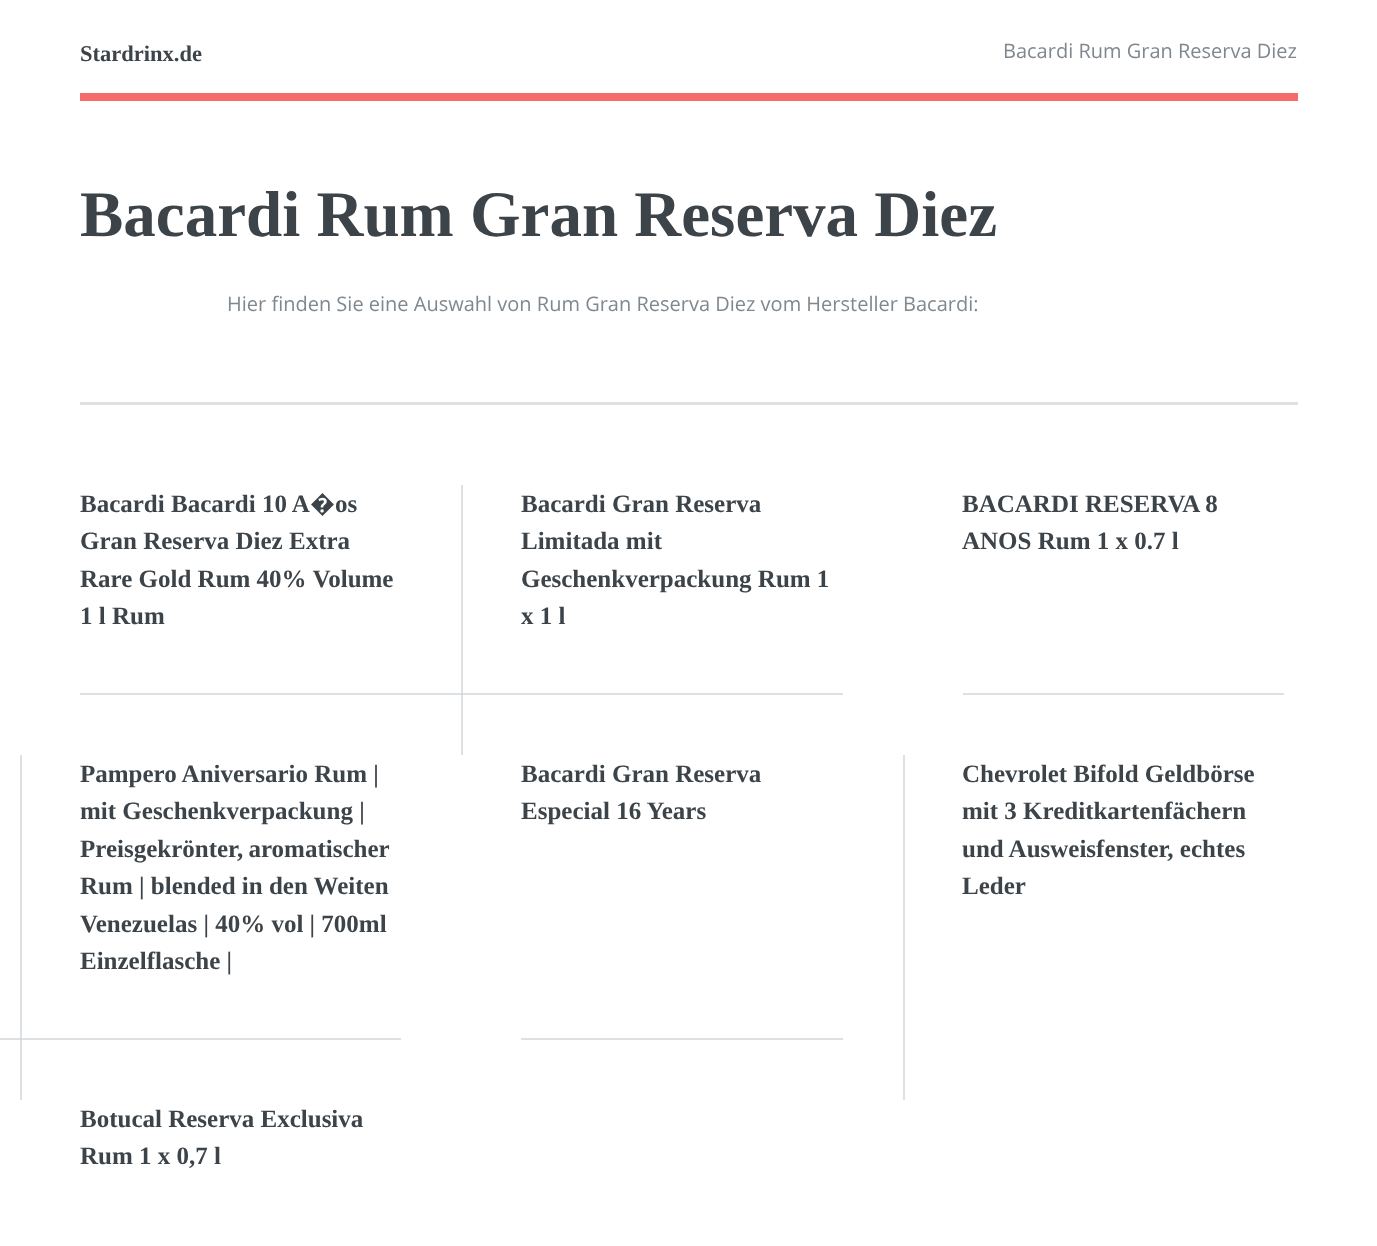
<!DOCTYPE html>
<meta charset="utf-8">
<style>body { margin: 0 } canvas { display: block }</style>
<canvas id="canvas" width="1377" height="1246"></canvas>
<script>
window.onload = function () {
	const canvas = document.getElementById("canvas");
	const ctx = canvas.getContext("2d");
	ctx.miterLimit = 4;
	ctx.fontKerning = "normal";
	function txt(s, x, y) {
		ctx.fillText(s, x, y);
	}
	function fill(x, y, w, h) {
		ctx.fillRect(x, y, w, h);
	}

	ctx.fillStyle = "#FFFFFF";
	fill(0, 0, 1377, 1246);
	ctx.fillStyle = "#DDE1E3";
	fill(0, 1038, 401, 2);
	fill(80, 693, 763, 2);
	ctx.fillStyle = "#F56A6A";
	fill(80, 93, 1218, 8);
	ctx.fillStyle = "#DDE1E3";
	fill(80, 402, 1218, 3);
	fill(461, 485, 2, 270);
	ctx.fillStyle = "#D5DADC";
	fill(461, 693, 2, 2);
	ctx.fillStyle = "#DDE1E3";
	fill(963, 693, 321, 2);
	fill(20, 755, 2, 345);
	ctx.fillStyle = "#D5DADC";
	fill(20, 1038, 2, 2);
	ctx.fillStyle = "#DDE1E3";
	fill(521, 1038, 322, 2);
	fill(903, 755, 2, 345);
	ctx.font = "bold 22.5px Liberation Serif";
	ctx.fillStyle = "#3D4449";
	txt("Stardrinx.de", 80, 61);
	ctx.font = "20px Open Sans";
	ctx.fillStyle = "#7F888F";
	txt("Bacardi Rum Gran Reserva Diez", 1003, 58);
	ctx.font = "bold 65px Liberation Serif";
	ctx.fillStyle = "#3D4449";
	txt("Bacardi Rum Gran Reserva Diez", 80, 236);
	ctx.font = "20px Open Sans";
	ctx.fillStyle = "#7F888F";
	txt("Hier finden Sie eine Auswahl von Rum Gran Reserva Diez vom Hersteller Bacardi:", 227, 311);
	ctx.font = "bold 25px Liberation Serif";
	ctx.fillStyle = "#3D4449";
	txt("Bacardi Bacardi 10 A", 80, 512);
	ctx.font = "bold 25px Noto Sans";
	txt("�", 310, 512);
	ctx.font = "bold 25px Liberation Serif";
	txt("os", 335, 512);
	txt("Gran Reserva Diez Extra", 80, 549);
	txt("Rare Gold Rum 40% Volume", 80, 587);
	txt("1 l Rum", 80, 624);
	txt("Bacardi Gran Reserva", 521, 512);
	txt("Limitada mit", 521, 549);
	txt("Geschenkverpackung Rum 1", 521, 587);
	txt("x 1 l", 521, 624);
	txt("BACARDI RESERVA 8", 962, 512);
	txt("ANOS Rum 1 x 0.7 l", 962, 549);
	txt("Pampero Aniversario Rum |", 80, 782);
	txt("mit Geschenkverpackung |", 80, 819);
	ctx.wordSpacing = "-1px";
	txt("Preisgekrönter, aromatischer", 80, 857);
	ctx.wordSpacing = "0px";
	txt("Rum | blended in den Weiten", 80, 894);
	txt("Venezuelas | 40% vol | 700ml", 80, 932);
	txt("Einzelflasche |", 80, 969);
	txt("Bacardi Gran Reserva", 521, 782);
	txt("Especial 16 Years", 521, 819);
	txt("Chevrolet Bifold Geldbörse", 962, 782);
	txt("mit 3 Kreditkartenfächern", 962, 819);
	txt("und Ausweisfenster, echtes", 962, 857);
	txt("Leder", 962, 894);
	txt("Botucal Reserva Exclusiva", 80, 1127);
	txt("Rum 1 x 0,7 l", 80, 1164);
};
</script>
